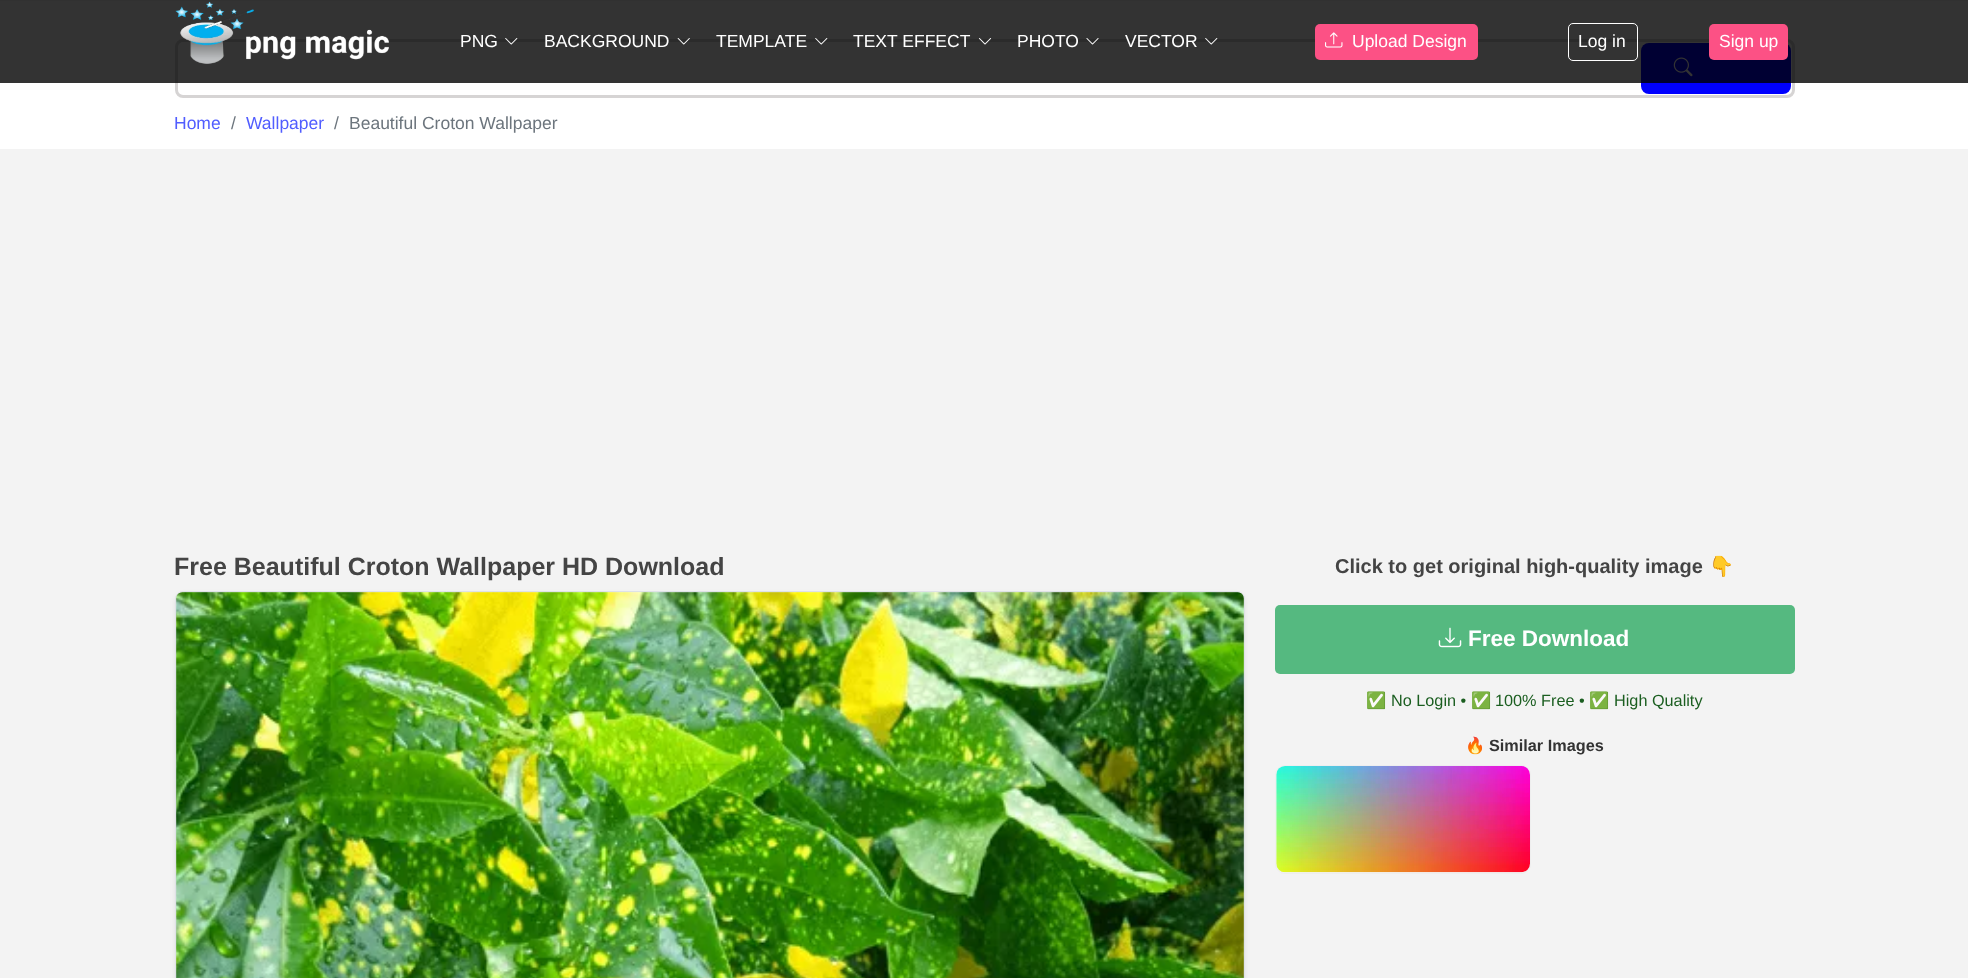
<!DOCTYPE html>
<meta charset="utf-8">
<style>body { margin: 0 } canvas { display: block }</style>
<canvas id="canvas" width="1968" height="978"></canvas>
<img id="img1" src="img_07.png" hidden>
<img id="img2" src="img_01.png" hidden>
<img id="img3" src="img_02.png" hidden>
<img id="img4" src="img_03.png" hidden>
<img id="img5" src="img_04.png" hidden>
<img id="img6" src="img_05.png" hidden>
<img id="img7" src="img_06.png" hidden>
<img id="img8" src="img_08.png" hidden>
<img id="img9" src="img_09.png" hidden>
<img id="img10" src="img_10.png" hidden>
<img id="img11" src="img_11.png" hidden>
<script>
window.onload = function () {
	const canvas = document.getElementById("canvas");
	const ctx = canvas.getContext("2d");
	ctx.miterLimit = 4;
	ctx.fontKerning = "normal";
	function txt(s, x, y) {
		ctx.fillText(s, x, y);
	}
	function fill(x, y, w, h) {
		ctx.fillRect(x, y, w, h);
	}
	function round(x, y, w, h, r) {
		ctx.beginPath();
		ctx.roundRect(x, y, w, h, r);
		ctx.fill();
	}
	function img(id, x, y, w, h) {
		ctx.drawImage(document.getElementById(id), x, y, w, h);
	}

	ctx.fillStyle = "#F3F3F3";
	fill(0, 0, 1968, 978);
	ctx.fillStyle = "#FFFFFF";
	fill(0, 1, 1968, 148);
	ctx.beginPath();
	ctx.roundRect(176.5, 40.5, 1617, 56, 6.5);
	ctx.strokeStyle = "#D6D4D4";
	ctx.lineWidth = 3;
	ctx.stroke();
	ctx.fillStyle = "#0000FF";
	round(1641, 43, 150, 51, 8);
	img("img1", 1673, 57, 20, 20);
	ctx.fillStyle = "rgba(0, 0, 0, 0.8)";
	fill(0, 0, 1968, 83);
	img("img2", 175, 1, 214, 63);
	img("img3", 505, 38, 13, 7);
	img("img4", 677, 38, 13, 7);
	img("img3", 815, 38, 13, 7);
	img("img5", 978, 38, 14, 7);
	img("img6", 1086, 38, 13, 7);
	img("img3", 1205, 38, 13, 7);
	ctx.fillStyle = "#FC5185";
	round(1315, 24, 163, 36, 5);
	img("img7", 1325, 32, 18, 16);
	ctx.beginPath();
	ctx.roundRect(1568.5, 23.5, 69, 37, 4.5);
	ctx.strokeStyle = "#FFFFFF";
	ctx.lineWidth = 1;
	ctx.stroke();
	round(1709, 24, 79, 36, 5);
	ctx.fillStyle = "rgba(0, 0, 0, 0.07)";
	ctx.filter = "blur(2.5px)";
	ctx.beginPath();
	ctx.roundRect(175, 594, 1070, 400, 8);
	ctx.fill();
	ctx.filter = "none";
	ctx.beginPath();
	ctx.roundRect(175.5, 591.5, 1069, 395, 7.5);
	ctx.strokeStyle = "#DEE2E6";
	ctx.stroke();
	img("img8", 176, 592, 1068, 386);
	img("img9", 176, 592, 1068, 386);
	ctx.fillStyle = "#55B980";
	round(1275, 605, 520, 69, 5);
	img("img10", 1438, 627, 24, 21);
	ctx.beginPath();
	ctx.roundRect(1275.5, 765.5, 255, 108, 9.5);
	ctx.strokeStyle = "#EEEEEE";
	ctx.stroke();
	img("img11", 1276, 766, 254, 107);
	ctx.font = "17.5px Liberation Sans";
	ctx.fillStyle = "#FFFFFF";
	txt("PNG", 460, 47);
	txt("BACKGROUND", 544, 47);
	txt("TEMPLATE", 716, 47);
	txt("TEXT EFFECT", 853, 47);
	txt("PHOTO", 1017, 47);
	txt("VECTOR", 1125, 47);
	txt("Upload Design", 1352, 47);
	txt("Log in", 1578, 47);
	txt("Sign up", 1719, 47);
	ctx.fillStyle = "#515DFF";
	txt("Home", 174, 129);
	ctx.fillStyle = "#6C757D";
	txt("/", 231, 129);
	ctx.fillStyle = "#515DFF";
	txt("Wallpaper", 246, 129);
	ctx.fillStyle = "#6C757D";
	txt("/", 334, 129);
	txt("Beautiful Croton Wallpaper", 349, 129);
	ctx.font = "bold 25px Liberation Sans";
	ctx.fillStyle = "#444444";
	txt("Free Beautiful Croton Wallpaper HD Download", 174, 575);
	ctx.font = "bold 20px Liberation Sans";
	txt("Click to get original high-quality image", 1335, 573);
	ctx.font = "bold 20px Noto Color Emoji";
	txt("👇", 1709, 573);
	ctx.font = "bold 22.5px Liberation Sans";
	ctx.fillStyle = "#FFFFFF";
	txt("Free Download", 1468, 646);
	ctx.font = "16.25px Noto Color Emoji";
	ctx.fillStyle = "#1B5E20";
	txt("✅", 1366, 706);
	ctx.font = "16.25px Liberation Sans";
	txt("No Login •", 1391, 706);
	ctx.font = "16.25px Noto Color Emoji";
	txt("✅", 1471, 706);
	ctx.font = "16.25px Liberation Sans";
	txt("100% Free •", 1495, 706);
	ctx.font = "16.25px Noto Color Emoji";
	txt("✅", 1589, 706);
	ctx.font = "16.25px Liberation Sans";
	txt("High Quality", 1614, 706);
	ctx.font = "bold 16.25px Noto Color Emoji";
	ctx.fillStyle = "#333333";
	txt("🔥", 1465, 751);
	ctx.font = "bold 16.25px Liberation Sans";
	txt("Similar Images", 1489, 751);
};
</script>
